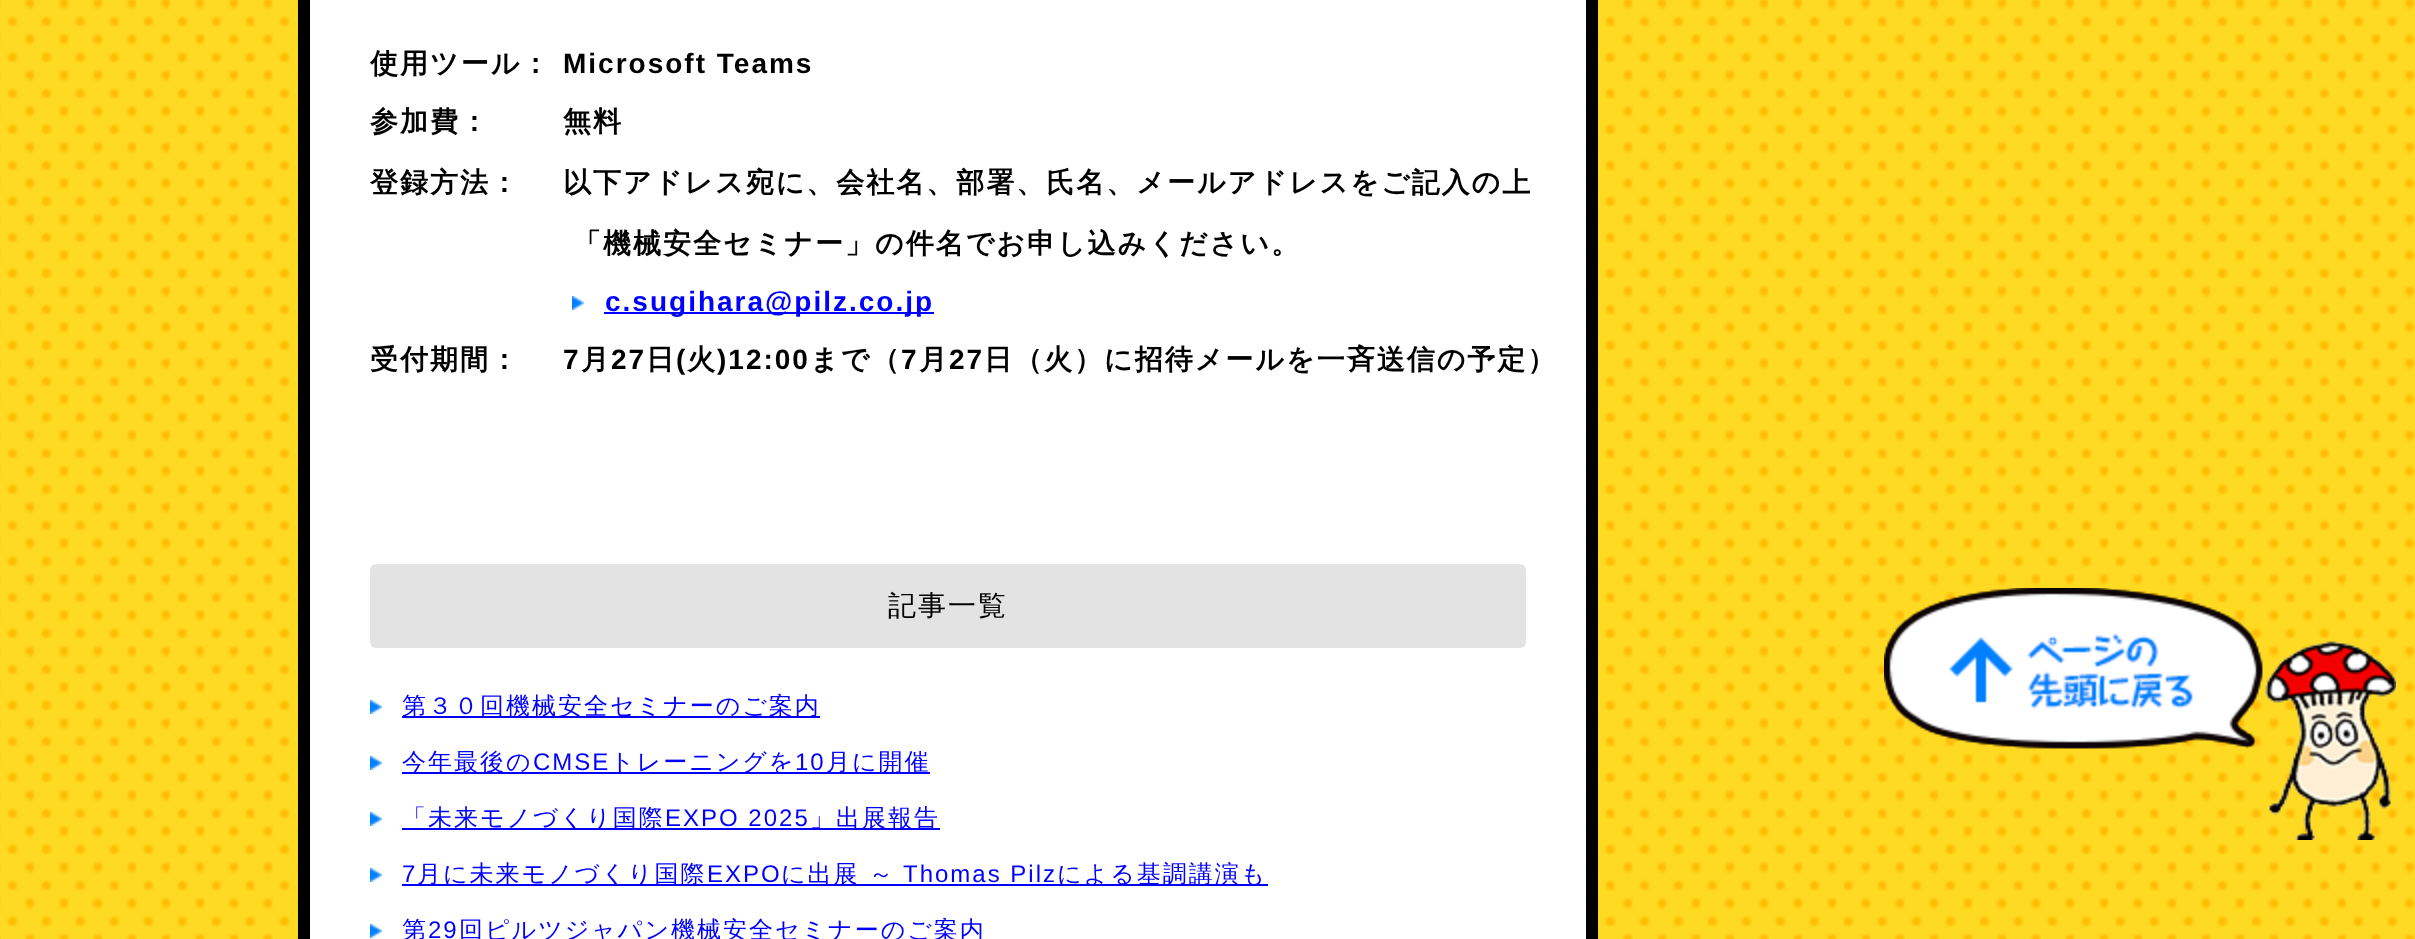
<!DOCTYPE html>
<meta charset="utf-8">
<style>body { margin: 0 } canvas { display: block }</style>
<canvas id="canvas" width="2415" height="939"></canvas>
<img id="img1" src="img_01.png" hidden>
<img id="img2" src="img_02.png" hidden>
<img id="img3" src="img_03.png" hidden>
<img id="img4" src="img_04.png" hidden>
<script>
window.onload = function () {
	const canvas = document.getElementById("canvas");
	const ctx = canvas.getContext("2d");
	ctx.miterLimit = 4;
	ctx.fontKerning = "normal";
	function txt(s, x, y) {
		ctx.fillText(s, x, y);
	}
	function fill(x, y, w, h) {
		ctx.fillRect(x, y, w, h);
	}
	function round(x, y, w, h, r) {
		ctx.beginPath();
		ctx.roundRect(x, y, w, h, r);
		ctx.fill();
	}
	function img(id, x, y, w, h) {
		ctx.drawImage(document.getElementById(id), x, y, w, h);
	}

	ctx.fillStyle = "#FFDA22";
	fill(0, 0, 2415, 939);
	img("img1", 0, 0, 2415, 939);
	ctx.fillStyle = "#FFFFFF";
	ctx.beginPath();
	ctx.rect(304, -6, 1288, 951);
	ctx.fill();
	ctx.strokeStyle = "#000000";
	ctx.lineWidth = 12;
	ctx.stroke();
	img("img2", 572, 296, 12, 14);
	ctx.fillStyle = "#0000FF";
	fill(604, 312, 330, 2);
	ctx.fillStyle = "#E3E3E3";
	round(370, 564, 1156, 84, 6);
	img("img2", 370, 700, 12, 14);
	ctx.fillStyle = "#0000FF";
	fill(402, 716, 418, 2);
	img("img2", 370, 756, 12, 14);
	fill(402, 772, 528, 2);
	img("img2", 370, 812, 12, 14);
	fill(402, 828, 538, 2);
	img("img2", 370, 868, 12, 14);
	fill(402, 884, 866, 2);
	img("img2", 370, 924, 12, 14);
	img("img3", 1884, 588, 512, 252);
	img("img4", 1884, 588, 512, 252);
	ctx.letterSpacing = "2px";
	ctx.font = "bold 28px WenQuanYi Zen Hei";
	ctx.fillStyle = "#000000";
	txt("使用ツール：", 370, 73);
	ctx.font = "bold 28px Liberation Sans";
	txt("Microsoft Teams", 563, 73);
	ctx.font = "bold 28px WenQuanYi Zen Hei";
	txt("参加費：", 370, 131);
	txt("無料", 563, 131);
	txt("登録方法：", 370, 192);
	txt("以下アドレス宛に、会社名、部署、氏名、メールアドレスをご記入の上", 563, 192);
	txt("「機械安全セミナー」の件名でお申し込みください。", 573, 253);
	ctx.font = "bold 28px Liberation Sans";
	ctx.fillStyle = "#0000FF";
	txt("c.sugihara@pilz.co.jp", 605, 311);
	ctx.font = "bold 28px WenQuanYi Zen Hei";
	ctx.fillStyle = "#000000";
	txt("受付期間：", 370, 369);
	ctx.font = "bold 28px Liberation Sans";
	txt("7", 563, 369);
	ctx.font = "bold 28px WenQuanYi Zen Hei";
	txt("月", 581, 369);
	ctx.font = "bold 28px Liberation Sans";
	txt("27", 611, 369);
	ctx.font = "bold 28px WenQuanYi Zen Hei";
	txt("日", 646, 369);
	ctx.font = "bold 28px Liberation Sans";
	txt("(", 676, 369);
	ctx.font = "bold 28px WenQuanYi Zen Hei";
	txt("火", 687, 369);
	ctx.font = "bold 28px Liberation Sans";
	txt(")12:00", 717, 369);
	ctx.font = "bold 28px WenQuanYi Zen Hei";
	txt("まで（", 810, 369);
	ctx.font = "bold 28px Liberation Sans";
	txt("7", 901, 369);
	ctx.font = "bold 28px WenQuanYi Zen Hei";
	txt("月", 919, 369);
	ctx.font = "bold 28px Liberation Sans";
	txt("27", 949, 369);
	ctx.font = "bold 28px WenQuanYi Zen Hei";
	txt("日（火）に招待メールを一斉送信の予定）", 984, 369);
	ctx.font = "500 28px WenQuanYi Zen Hei";
	txt("記事一覧", 888, 615);
	ctx.font = "500 24px WenQuanYi Zen Hei";
	ctx.fillStyle = "#0000FF";
	txt("第３０回機械安全セミナーのご案内", 402, 714);
	txt("今年最後の", 402, 770);
	ctx.font = "24px Liberation Sans";
	txt("CMSE", 533, 770);
	ctx.font = "500 24px WenQuanYi Zen Hei";
	txt("トレーニングを", 610, 770);
	ctx.font = "24px Liberation Sans";
	txt("10", 795, 770);
	ctx.font = "500 24px WenQuanYi Zen Hei";
	txt("月に開催", 826, 770);
	txt("「未来モノづくり国際", 402, 826);
	ctx.font = "24px Liberation Sans";
	txt("EXPO 2025", 665, 826);
	ctx.font = "500 24px WenQuanYi Zen Hei";
	txt("」出展報告", 810, 826);
	ctx.font = "24px Liberation Sans";
	txt("7", 402, 882);
	ctx.font = "500 24px WenQuanYi Zen Hei";
	txt("月に未来モノづくり国際", 417, 882);
	ctx.font = "24px Liberation Sans";
	txt("EXPO", 707, 882);
	ctx.font = "500 24px WenQuanYi Zen Hei";
	txt("に出展", 781, 882);
	txt("～", 869, 882);
	ctx.font = "24px Liberation Sans";
	txt("Thomas Pilz", 903, 882);
	ctx.font = "500 24px WenQuanYi Zen Hei";
	txt("による基調講演も", 1057, 882);
	txt("第", 402, 938);
	ctx.font = "24px Liberation Sans";
	txt("29", 428, 938);
	ctx.font = "500 24px WenQuanYi Zen Hei";
	txt("回ピルツジャパン機械安全セミナーのご案内", 459, 938);
};
</script>
